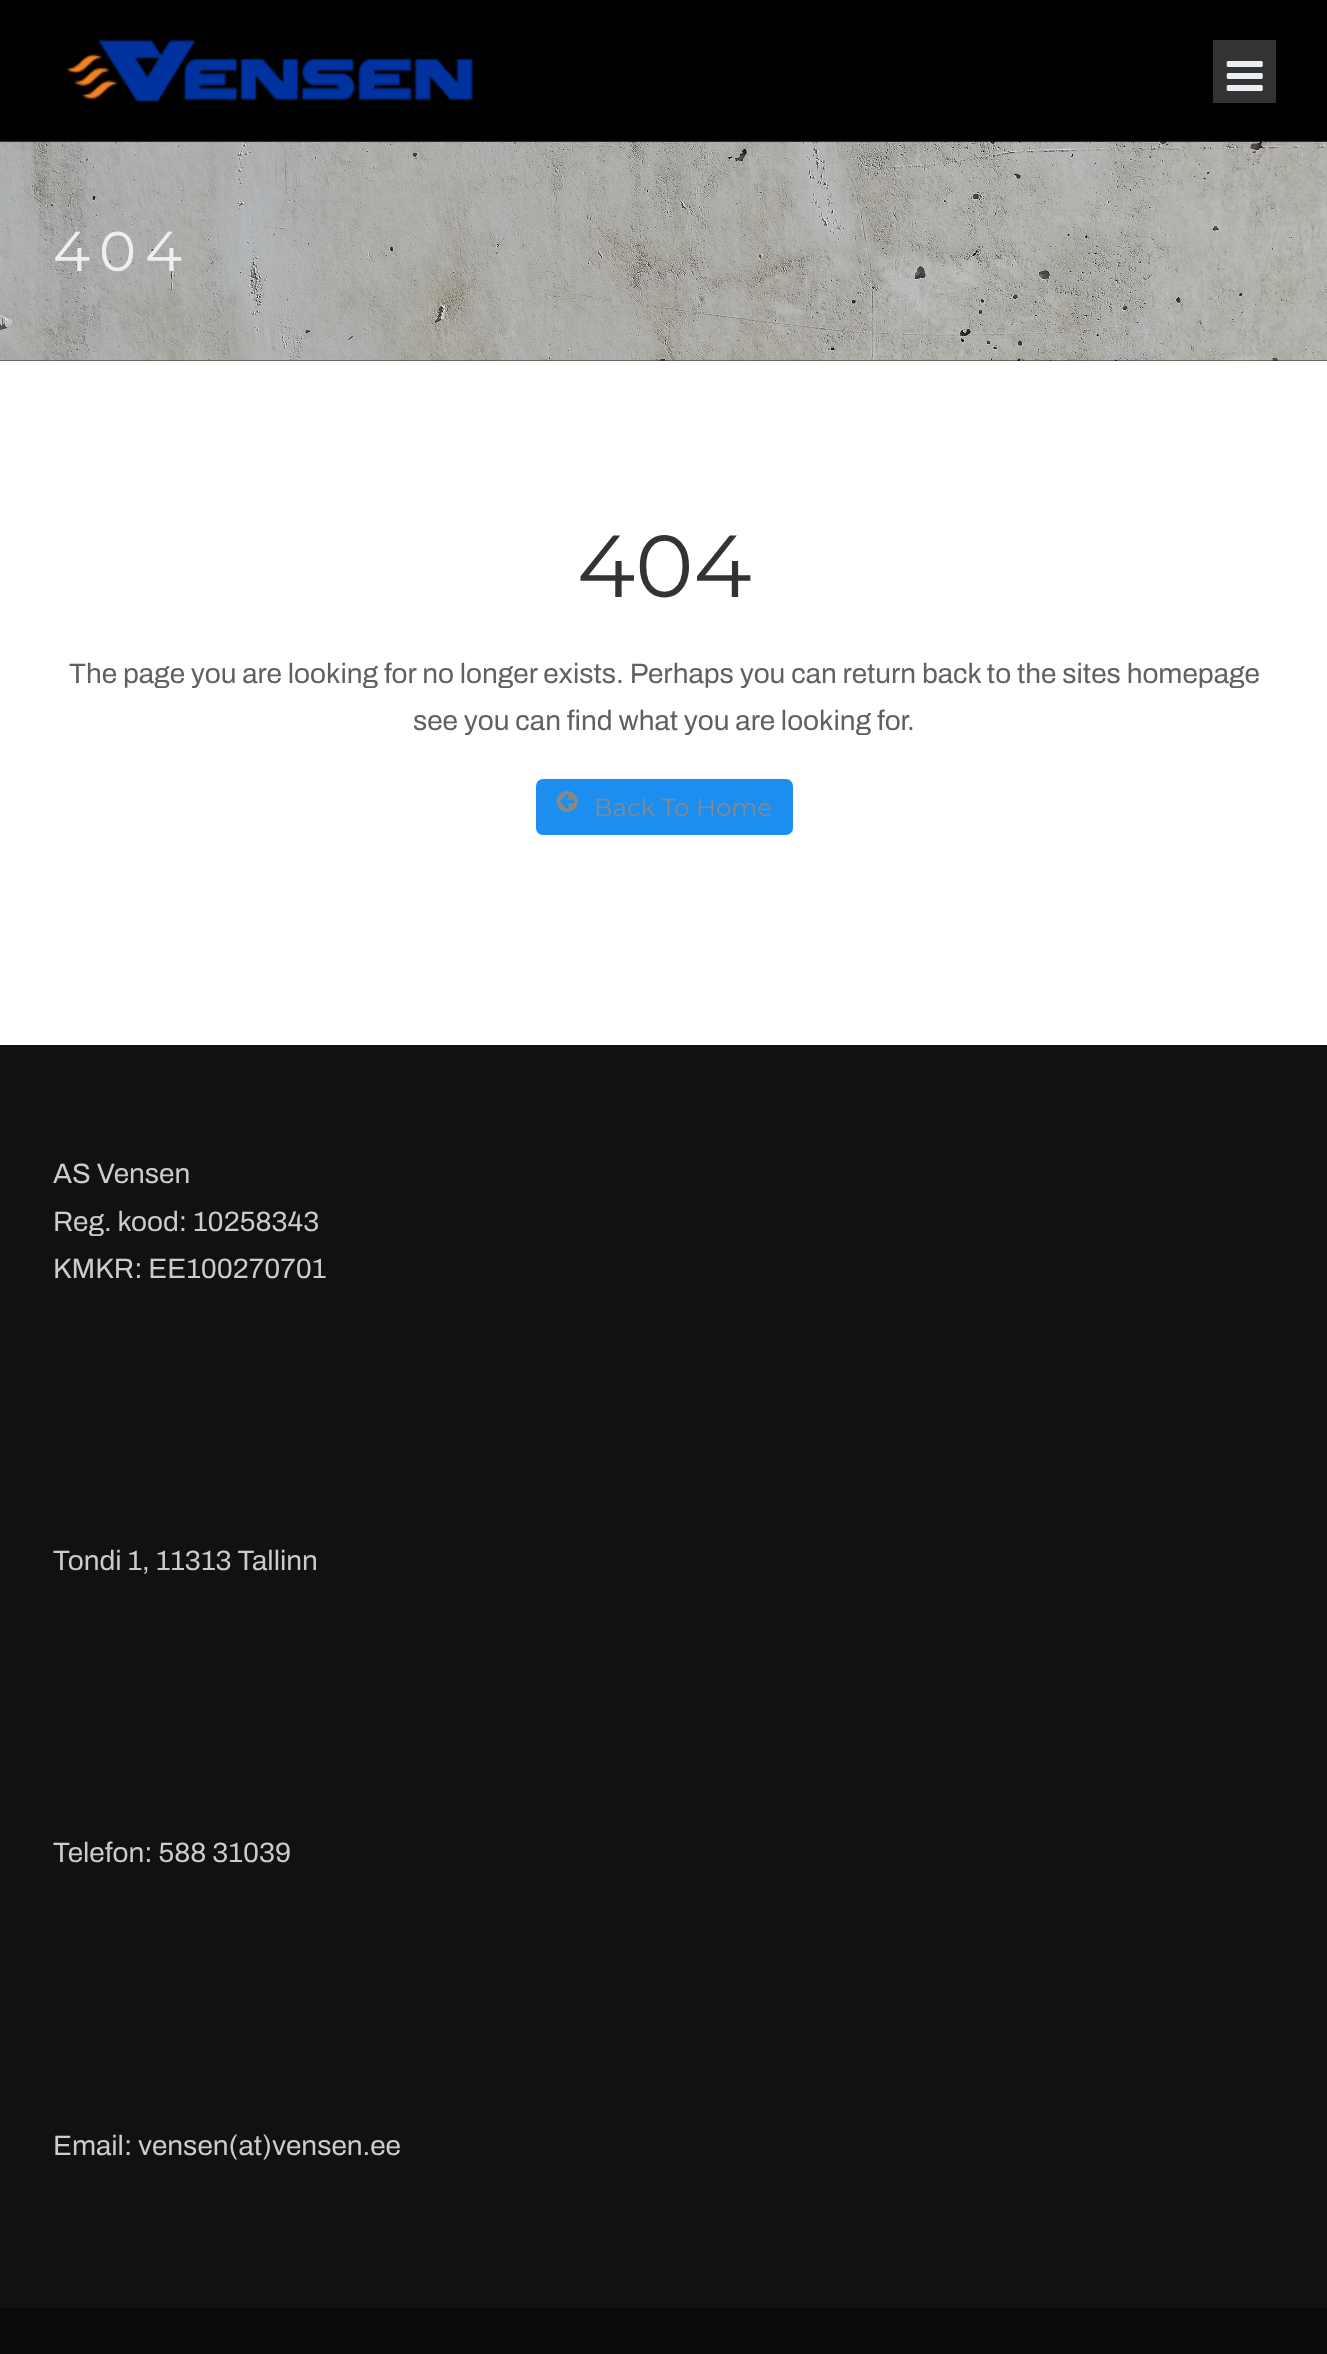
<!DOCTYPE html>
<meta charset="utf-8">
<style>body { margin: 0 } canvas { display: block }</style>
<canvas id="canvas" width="1327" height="2354"></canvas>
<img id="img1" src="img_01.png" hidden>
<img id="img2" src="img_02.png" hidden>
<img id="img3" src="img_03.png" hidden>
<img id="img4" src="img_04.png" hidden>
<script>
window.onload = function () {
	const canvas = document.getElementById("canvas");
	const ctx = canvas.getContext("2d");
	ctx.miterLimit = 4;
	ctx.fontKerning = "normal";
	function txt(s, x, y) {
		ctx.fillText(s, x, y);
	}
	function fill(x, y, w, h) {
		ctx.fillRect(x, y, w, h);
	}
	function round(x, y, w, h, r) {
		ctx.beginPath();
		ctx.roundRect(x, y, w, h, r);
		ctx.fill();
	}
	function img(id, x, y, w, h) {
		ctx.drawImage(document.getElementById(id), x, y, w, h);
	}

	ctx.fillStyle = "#FFFFFF";
	fill(0, 0, 1327, 2354);
	ctx.fillStyle = "#000000";
	fill(0, 0, 1327, 142);
	img("img1", 66, 39, 407, 63);
	ctx.fillStyle = "#333333";
	fill(1213, 40, 63, 63);
	img("img2", 1226, 61, 37, 30);
	ctx.fillStyle = "#222222";
	fill(0, 360, 1327, 1);
	img("img3", 0, 141, 1327, 220);
	ctx.fillStyle = "#1C8EEF";
	round(536, 779, 257, 56, 7);
	img("img4", 556, 791, 22, 21);
	ctx.fillStyle = "#111111";
	fill(0, 1045, 1327, 1263);
	ctx.fillStyle = "#0B0B0B";
	fill(0, 2308, 1327, 46);
	ctx.letterSpacing = "9px";
	ctx.font = "56px Montserrat";
	ctx.fillStyle = "#ECEFF3";
	txt("404", 53, 271);
	ctx.letterSpacing = "0px";
	ctx.font = "88px Montserrat";
	ctx.fillStyle = "#333333";
	txt("404", 577, 597);
	ctx.font = "600 28px Archivo";
	ctx.fillStyle = "#606060";
	txt("The page you are looking for no longer exists. Perhaps you can return back to the sites homepage", 69, 683);
	txt("see you can find what you are looking for.", 413, 730);
	ctx.font = "24.5px Montserrat";
	ctx.fillStyle = "#888888";
	txt("Back To Home", 594, 816);
	ctx.font = "600 28px Archivo";
	ctx.fillStyle = "#CCCCCC";
	txt("AS Vensen", 53, 1183);
	txt("Reg. kood: 10258343", 53, 1231);
	txt("KMKR: EE100270701", 53, 1278);
	txt("Tondi 1, 11313 Tallinn", 53, 1570);
	txt("Telefon: 588 31039", 53, 1862);
	txt("Email: vensen(at)vensen.ee", 53, 2155);
};
</script>
